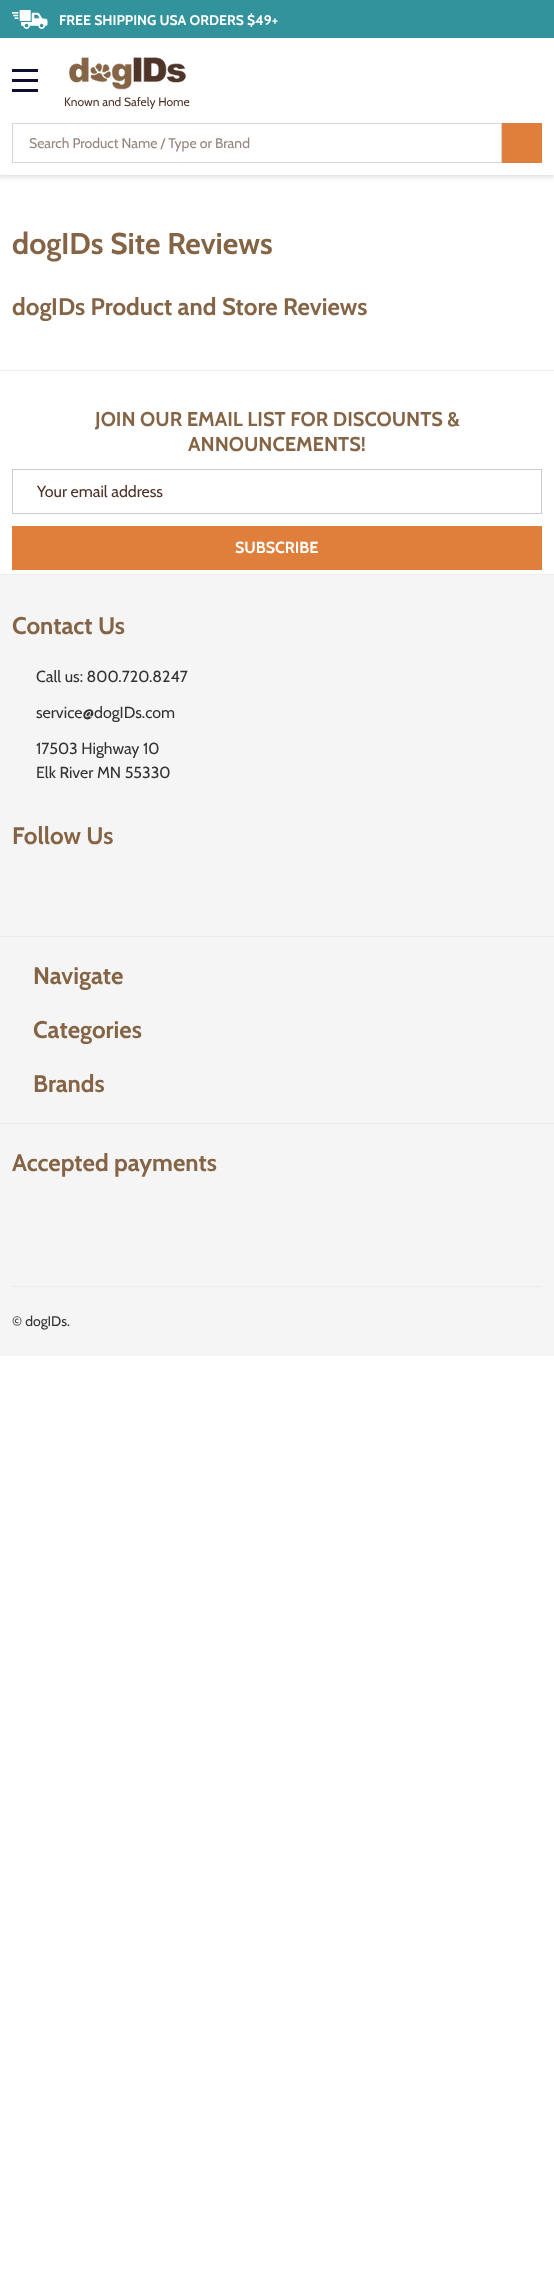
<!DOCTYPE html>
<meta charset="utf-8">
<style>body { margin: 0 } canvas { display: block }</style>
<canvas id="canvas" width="554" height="2293"></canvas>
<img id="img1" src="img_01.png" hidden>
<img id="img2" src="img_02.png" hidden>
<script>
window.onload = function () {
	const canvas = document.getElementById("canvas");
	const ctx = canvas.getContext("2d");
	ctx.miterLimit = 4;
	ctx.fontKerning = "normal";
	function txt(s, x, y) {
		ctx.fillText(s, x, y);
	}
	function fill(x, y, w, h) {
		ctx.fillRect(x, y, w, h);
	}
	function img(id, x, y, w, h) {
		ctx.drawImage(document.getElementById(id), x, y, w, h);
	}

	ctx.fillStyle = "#FFFFFF";
	fill(0, 0, 554, 2293);
	ctx.save();
	ctx.beginPath();
	ctx.rect(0, 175, 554, 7);
	ctx.clip();
	ctx.fillStyle = "#DDDDDD";
	ctx.filter = "blur(2.5px)";
	ctx.beginPath();
	ctx.rect(-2, -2, 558, 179);
	ctx.fill();
	ctx.filter = "none";
	ctx.restore();
	ctx.fillStyle = "#33939C";
	fill(0, 0, 554, 38);
	img("img1", 12, 10, 36, 19);
	ctx.fillStyle = "#0F0F2D";
	fill(12, 79, 26, 3);
	fill(12, 69, 26, 3);
	fill(12, 89, 26, 3);
	img("img2", 68, 57, 118, 33);
	ctx.strokeStyle = "#D6D6D6";
	ctx.strokeRect(12.5, 123.5, 489, 39);
	ctx.fillStyle = "#E07E3C";
	fill(502, 123, 40, 40);
	ctx.fillStyle = "#EEEEEE";
	fill(0, 370, 554, 1);
	fill(0, 574, 554, 1);
	ctx.strokeStyle = "#CCCCCC";
	ctx.strokeRect(12.5, 469.5, 529, 44);
	ctx.fillStyle = "#E07E3C";
	fill(12, 526, 530, 44);
	ctx.fillStyle = "#F5F5F5";
	fill(0, 575, 554, 781);
	ctx.fillStyle = "#EBEBEB";
	fill(0, 936, 554, 1);
	fill(0, 1123, 554, 1);
	fill(12, 1286, 530, 1);
	ctx.font = "bold 14px Cabin";
	ctx.fillStyle = "#FFFFFF";
	txt("FREE SHIPPING USA ORDERS $49+", 59, 25);
	ctx.font = "12px Cabin";
	ctx.fillStyle = "#4E3228";
	txt("Known and Safely Home", 64, 106);
	ctx.font = "14px Cabin";
	ctx.fillStyle = "#95857E";
	txt("Search Product Name / Type or Brand", 29, 148);
	ctx.font = "bold 30px Cabin";
	ctx.fillStyle = "#856445";
	txt("dogIDs Site Reviews", 12, 254);
	ctx.font = "bold 24px Cabin";
	txt("dogIDs Product and Store Reviews", 12, 315);
	ctx.font = "bold 20px Cabin";
	txt("JOIN OUR EMAIL LIST FOR DISCOUNTS &", 95, 426);
	txt("ANNOUNCEMENTS!", 188, 451);
	ctx.font = "16px Cabin";
	ctx.fillStyle = "#4E3228";
	txt("Your email address", 37, 497);
	ctx.font = "bold 16px Cabin";
	ctx.fillStyle = "#FFFFFF";
	txt("SUBSCRIBE", 235, 553);
	ctx.font = "bold 24px Cabin";
	ctx.fillStyle = "#856445";
	txt("Contact Us", 12, 634);
	ctx.font = "16px Cabin";
	ctx.fillStyle = "#333333";
	txt("Call us: 800.720.8247", 36, 682);
	txt("service@dogIDs.com", 36, 718);
	txt("17503 Highway 10", 36, 754);
	txt("Elk River MN 55330", 36, 778);
	ctx.font = "bold 24px Cabin";
	ctx.fillStyle = "#856445";
	txt("Follow Us", 12, 844);
	txt("Navigate", 33, 984);
	txt("Categories", 33, 1038);
	txt("Brands", 33, 1092);
	txt("Accepted payments", 12, 1171);
	ctx.font = "14px Cabin";
	ctx.fillStyle = "#333333";
	txt("© dogIDs.", 12, 1326);
};
</script>
